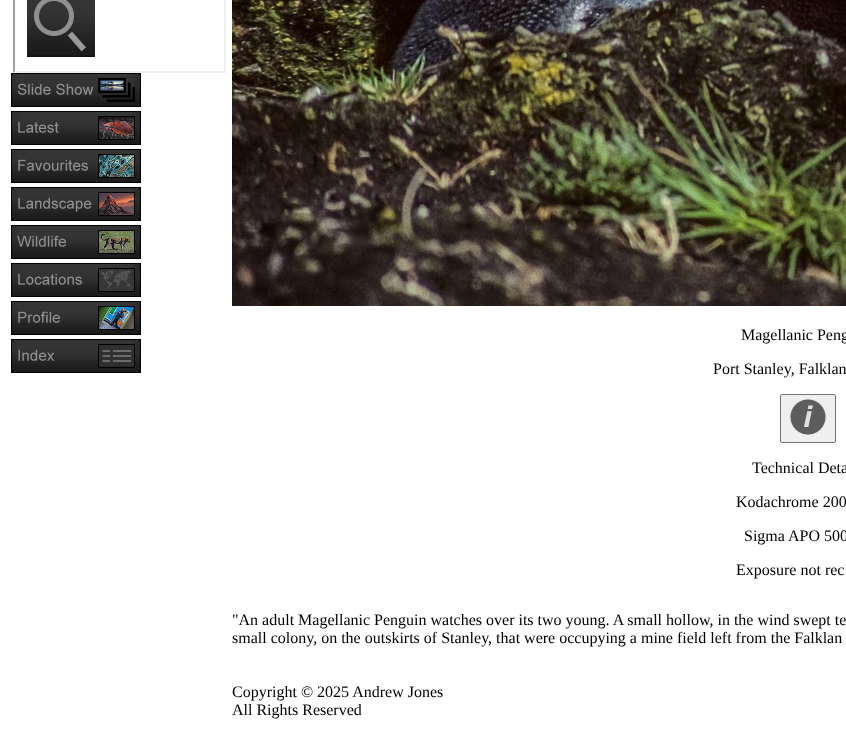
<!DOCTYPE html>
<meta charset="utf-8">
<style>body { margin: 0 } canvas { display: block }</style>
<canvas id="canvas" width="846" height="746"></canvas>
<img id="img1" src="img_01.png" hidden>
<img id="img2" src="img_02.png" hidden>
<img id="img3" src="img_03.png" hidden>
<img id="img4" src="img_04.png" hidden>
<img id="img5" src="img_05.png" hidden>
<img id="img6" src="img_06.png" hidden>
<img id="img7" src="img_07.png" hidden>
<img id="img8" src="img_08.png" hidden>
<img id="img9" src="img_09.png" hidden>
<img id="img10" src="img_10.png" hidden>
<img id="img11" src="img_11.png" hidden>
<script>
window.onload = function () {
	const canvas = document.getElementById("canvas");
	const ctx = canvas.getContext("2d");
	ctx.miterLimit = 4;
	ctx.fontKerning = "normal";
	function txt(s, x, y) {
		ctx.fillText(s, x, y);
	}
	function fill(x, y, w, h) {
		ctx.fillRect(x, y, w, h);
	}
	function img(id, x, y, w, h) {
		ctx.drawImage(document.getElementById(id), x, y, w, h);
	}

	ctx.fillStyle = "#FFFFFF";
	fill(0, 0, 846, 746);
	ctx.fillStyle = "#EFEFEF";
	ctx.beginPath();
	ctx.moveTo(226, -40);
	ctx.lineTo(226, 73);
	ctx.lineTo(224, 71);
	ctx.lineTo(224, -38);
	ctx.closePath();
	ctx.fill();
	ctx.beginPath();
	ctx.moveTo(226, 73);
	ctx.lineTo(13, 73);
	ctx.lineTo(15, 71);
	ctx.lineTo(224, 71);
	ctx.closePath();
	ctx.fill();
	ctx.fillStyle = "#9F9F9F";
	ctx.beginPath();
	ctx.moveTo(13, 73);
	ctx.lineTo(13, -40);
	ctx.lineTo(15, -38);
	ctx.lineTo(15, 71);
	ctx.closePath();
	ctx.fill();
	img("img1", 27, 0, 68, 57);
	img("img2", 11, 73, 130, 34);
	img("img3", 11, 111, 130, 34);
	img("img4", 11, 149, 130, 34);
	img("img5", 11, 187, 130, 34);
	img("img6", 11, 225, 130, 34);
	img("img7", 11, 263, 130, 34);
	img("img8", 11, 301, 130, 34);
	img("img9", 11, 339, 130, 34);
	img("img10", 232, 0, 614, 306);
	ctx.fillStyle = "#EFEFEF";
	ctx.beginPath();
	ctx.roundRect(780.5, 394.5, 55, 48, 1.5);
	ctx.fill();
	ctx.strokeStyle = "#767676";
	ctx.stroke();
	img("img11", 789, 399, 38, 36);
	ctx.font = "16px Liberation Serif";
	ctx.fillStyle = "#000000";
	txt("Magellanic Peng", 741, 340);
	txt("Port Stanley, Falklan", 713, 374);
	txt("Technical Deta", 752, 473);
	txt("Kodachrome 200", 736, 507);
	txt("Sigma APO 500", 744, 541);
	txt("Exposure not rec", 736, 575);
	txt("\"An adult Magellanic Penguin watches over its two young. A small hollow, in the wind swept te", 232, 625);
	txt("small colony, on the outskirts of Stanley, that were occupying a mine field left from the Falklan", 232, 643);
	txt("Copyright © 2025 Andrew Jones", 232, 697);
	txt("All Rights Reserved", 232, 715);
};
</script>
